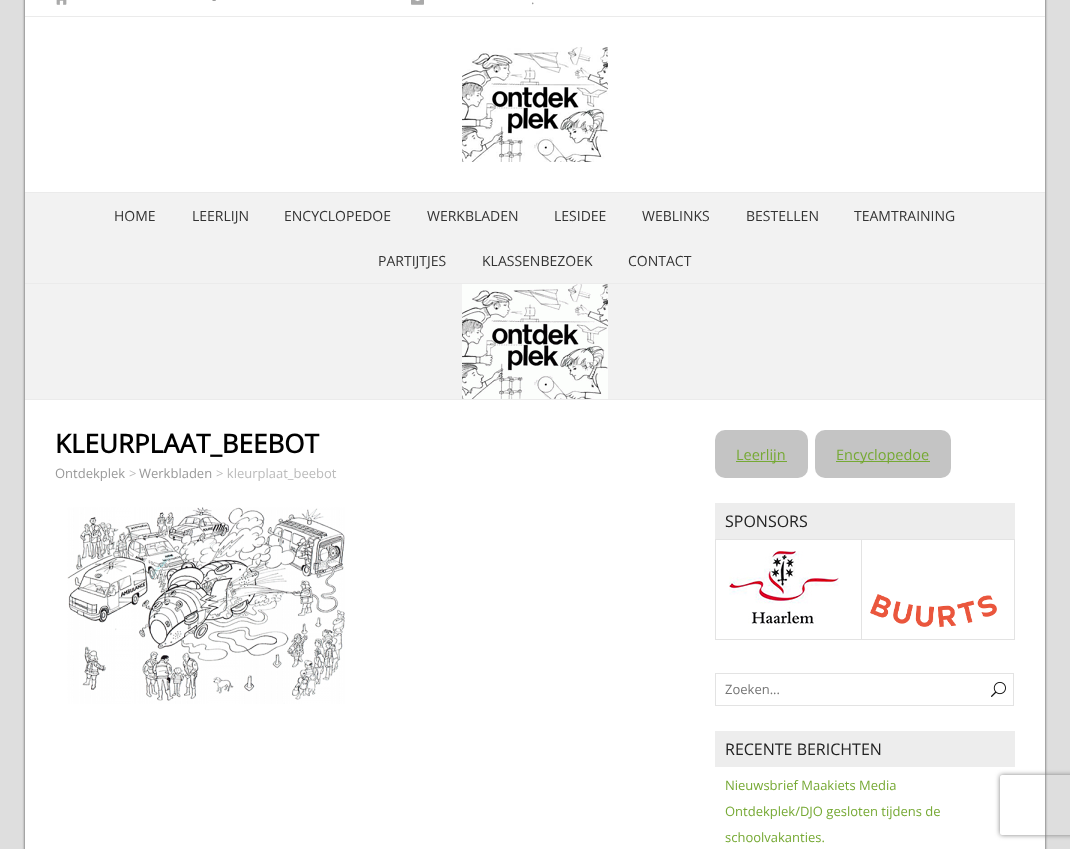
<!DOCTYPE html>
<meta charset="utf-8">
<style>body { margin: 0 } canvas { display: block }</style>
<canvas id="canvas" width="1070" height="849"></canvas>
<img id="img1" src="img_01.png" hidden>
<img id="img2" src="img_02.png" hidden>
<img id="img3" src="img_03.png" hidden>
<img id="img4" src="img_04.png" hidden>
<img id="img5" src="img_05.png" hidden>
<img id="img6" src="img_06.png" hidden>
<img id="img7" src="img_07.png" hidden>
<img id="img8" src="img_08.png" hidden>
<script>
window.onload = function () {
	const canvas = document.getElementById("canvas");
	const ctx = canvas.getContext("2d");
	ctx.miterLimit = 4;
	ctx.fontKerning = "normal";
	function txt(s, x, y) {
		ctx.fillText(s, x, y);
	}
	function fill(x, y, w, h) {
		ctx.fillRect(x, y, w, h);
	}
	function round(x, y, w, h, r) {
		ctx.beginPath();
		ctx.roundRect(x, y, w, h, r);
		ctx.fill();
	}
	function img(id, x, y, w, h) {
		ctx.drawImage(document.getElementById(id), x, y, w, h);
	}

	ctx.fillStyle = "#DEDEDE";
	fill(0, 0, 1070, 849);
	ctx.fillStyle = "#444444";
	ctx.filter = "blur(1.5px)";
	ctx.beginPath();
	ctx.rect(25, -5, 1020, 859);
	ctx.fill();
	ctx.filter = "none";
	ctx.fillStyle = "#FFFFFF";
	fill(25, 0, 1020, 849);
	ctx.fillStyle = "#EBEBEB";
	fill(25, 16, 1020, 1);
	img("img1", 56, 0, 11, 5);
	img("img2", 411, 0, 13, 5);
	fill(25, 192, 1020, 1);
	img("img3", 462, 47, 146, 115);
	ctx.fillStyle = "#F2F2F2";
	fill(25, 193, 1020, 90);
	ctx.fillStyle = "#EBEBEB";
	fill(25, 283, 1020, 1);
	ctx.fillStyle = "#F2F2F2";
	fill(25, 284, 1020, 115);
	ctx.fillStyle = "#EBEBEB";
	fill(25, 399, 1020, 1);
	img("img4", 462, 284, 146, 115);
	img("img5", 67, 507, 278, 197);
	ctx.fillStyle = "#C4C4C4";
	round(715, 430, 93, 48, 10);
	ctx.fillStyle = "#76A934";
	fill(736, 461, 51, 1);
	ctx.fillStyle = "#C4C4C4";
	round(815, 430, 136, 48, 10);
	ctx.fillStyle = "#76A934";
	fill(836, 461, 94, 1);
	ctx.fillStyle = "#EDEDED";
	fill(715, 503, 300, 36);
	ctx.fillStyle = "#E3E3E3";
	fill(715, 539, 300, 1);
	fill(1014, 539, 1, 101);
	fill(715, 639, 300, 1);
	fill(715, 539, 1, 101);
	img("img6", 729, 551, 110, 73);
	fill(861, 539, 1, 101);
	img("img7", 870, 594, 127, 33);
	ctx.strokeStyle = "#E3E3E3";
	ctx.strokeRect(715.5, 673.5, 298, 32);
	img("img8", 991, 681, 15, 16);
	ctx.fillStyle = "#EDEDED";
	fill(715, 731, 300, 36);
	ctx.save();
	ctx.beginPath();
	ctx.moveTo(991, 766);
	ctx.lineTo(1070, 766);
	ctx.lineTo(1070, 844);
	ctx.lineTo(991, 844);
	ctx.closePath();
	ctx.moveTo(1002, 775);
	ctx.lineTo(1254, 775);
	ctx.bezierCurveTo(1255, 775, 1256, 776, 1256, 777);
	ctx.lineTo(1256, 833);
	ctx.bezierCurveTo(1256, 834, 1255, 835, 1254, 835);
	ctx.lineTo(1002, 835);
	ctx.bezierCurveTo(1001, 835, 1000, 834, 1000, 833);
	ctx.lineTo(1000, 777);
	ctx.bezierCurveTo(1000, 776, 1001, 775, 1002, 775);
	ctx.closePath();
	ctx.clip("evenodd");
	ctx.fillStyle = "#808080";
	ctx.filter = "blur(2.5px)";
	ctx.beginPath();
	ctx.roundRect(1000, 775, 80, 60, 2);
	ctx.fill();
	ctx.filter = "none";
	ctx.restore();
	ctx.font = "13px Open Sans";
	ctx.fillStyle = "#999999";
	txt("-", 212, 4);
	txt(".", 531, 4);
	ctx.font = "14px Open Sans";
	ctx.fillStyle = "#333333";
	txt("HOME", 114, 221);
	txt("LEERLIJN", 192, 221);
	txt("ENCYCLOPEDOE", 284, 221);
	txt("WERKBLADEN", 427, 221);
	txt("LESIDEE", 554, 221);
	txt("WEBLINKS", 642, 221);
	txt("BESTELLEN", 746, 221);
	txt("TEAMTRAINING", 854, 221);
	txt("PARTIJTJES", 378, 266);
	txt("KLASSENBEZOEK", 482, 266);
	txt("CONTACT", 628, 266);
	ctx.font = "bold 26px Open Sans";
	ctx.fillStyle = "#000000";
	txt("KLEURPLAAT_BEEBOT", 55, 453);
	ctx.font = "13px Open Sans";
	ctx.fillStyle = "#999999";
	txt("Ontdekplek", 55, 478);
	ctx.fillStyle = "#BBBBBB";
	txt(">", 129, 478);
	ctx.fillStyle = "#999999";
	txt("Werkbladen", 139, 478);
	ctx.fillStyle = "#BBBBBB";
	txt("> kleurplaat_beebot", 216, 478);
	ctx.font = "14.5px Open Sans";
	ctx.fillStyle = "#76A934";
	txt("Leerlijn", 736, 460);
	txt("Encyclopedoe", 836, 460);
	ctx.font = "16px Open Sans";
	ctx.fillStyle = "#222222";
	txt("SPONSORS", 725, 527);
	ctx.font = "13px Open Sans";
	ctx.fillStyle = "#757575";
	txt("Zoeken...", 725, 694);
	ctx.font = "16px Open Sans";
	ctx.fillStyle = "#222222";
	txt("RECENTE BERICHTEN", 725, 755);
	ctx.font = "13px Open Sans";
	ctx.fillStyle = "#76A934";
	txt("Nieuwsbrief Maakiets Media", 725, 790);
	txt("Ontdekplek/DJO gesloten tijdens de", 725, 816);
	txt("schoolvakanties.", 725, 842);
};
</script>
